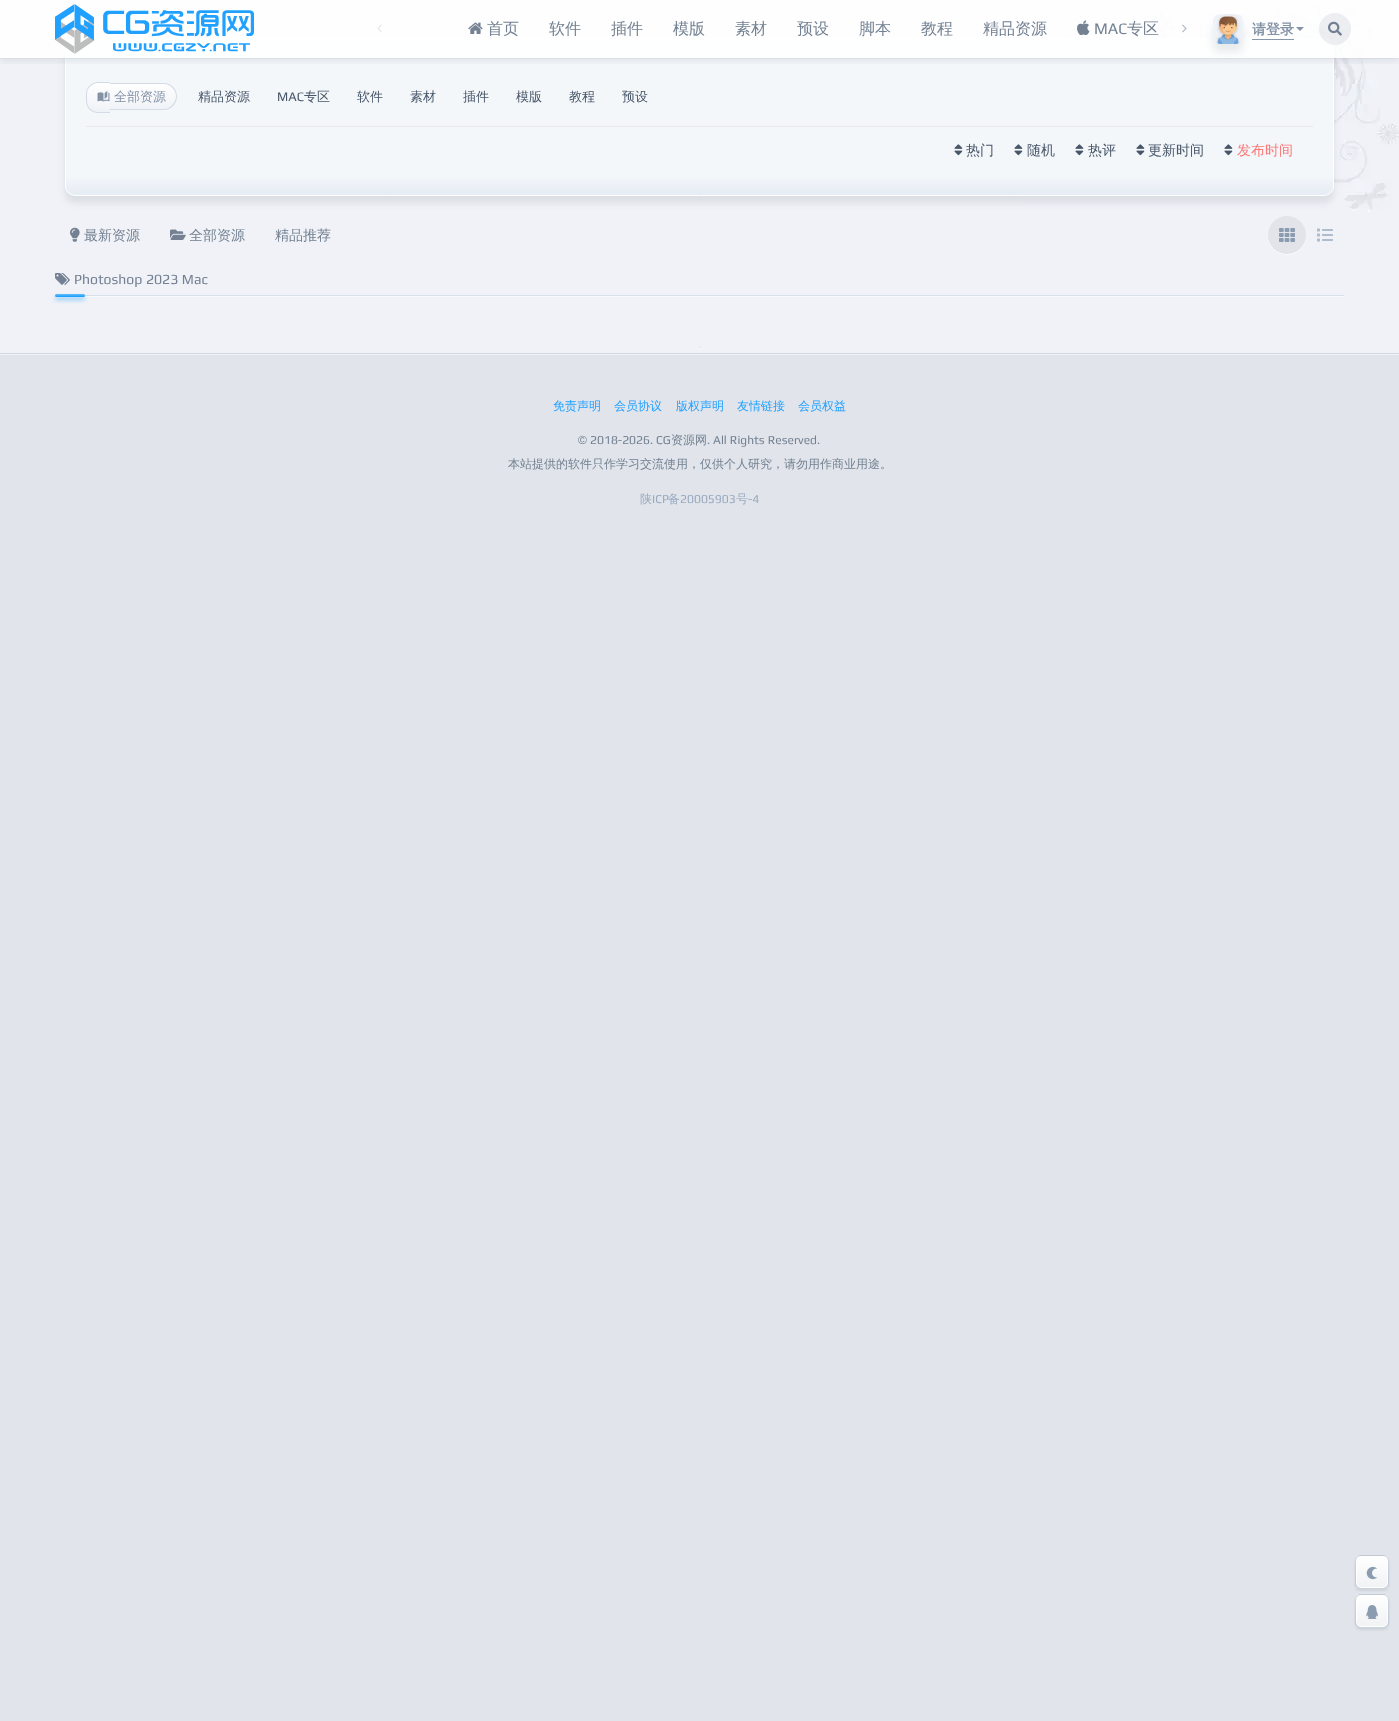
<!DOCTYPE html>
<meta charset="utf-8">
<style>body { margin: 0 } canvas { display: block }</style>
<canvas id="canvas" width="1399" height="1721"></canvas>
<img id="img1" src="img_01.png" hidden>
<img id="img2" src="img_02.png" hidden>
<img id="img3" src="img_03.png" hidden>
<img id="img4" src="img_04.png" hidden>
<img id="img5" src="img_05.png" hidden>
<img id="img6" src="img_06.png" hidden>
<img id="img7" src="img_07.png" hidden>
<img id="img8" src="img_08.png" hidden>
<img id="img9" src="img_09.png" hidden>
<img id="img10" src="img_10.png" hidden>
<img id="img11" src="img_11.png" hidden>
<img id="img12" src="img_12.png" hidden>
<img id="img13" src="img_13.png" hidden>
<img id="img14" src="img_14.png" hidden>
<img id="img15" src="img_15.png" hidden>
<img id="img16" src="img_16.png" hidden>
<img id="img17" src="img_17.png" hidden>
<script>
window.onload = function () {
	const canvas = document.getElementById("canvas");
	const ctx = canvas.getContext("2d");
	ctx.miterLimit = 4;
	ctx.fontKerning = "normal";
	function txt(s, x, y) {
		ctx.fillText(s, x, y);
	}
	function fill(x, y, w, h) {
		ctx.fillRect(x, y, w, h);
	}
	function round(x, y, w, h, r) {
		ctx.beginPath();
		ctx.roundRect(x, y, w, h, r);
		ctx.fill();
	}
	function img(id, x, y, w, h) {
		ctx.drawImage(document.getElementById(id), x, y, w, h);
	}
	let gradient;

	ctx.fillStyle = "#E1E5EB";
	fill(0, 0, 1399, 1721);
	ctx.fillStyle = "#F0F2F7";
	fill(0, 0, 1399, 353);
	img("img1", 1024, 3, 375, 209);
	ctx.fillStyle = "rgba(31, 45, 61, 0.1)";
	ctx.filter = "blur(3.5px)";
	ctx.beginPath();
	ctx.roundRect(65, 45, 1269, 158, 10);
	ctx.fill();
	ctx.filter = "none";
	ctx.save();
	ctx.beginPath();
	ctx.roundRect(65, 38, 1269, 158, 10);
	ctx.clip();
	gradient = ctx.createLinearGradient(700, 39, 700, 195);
	gradient.addColorStop(0.87, "#F4F7FA");
	gradient.addColorStop(1, "#E6ECF4");
	ctx.fillStyle = gradient;
	fill(65, 39, 1269, 156);
	ctx.restore();
	ctx.beginPath();
	ctx.roundRect(65.5, 38.5, 1268, 157, 9.5);
	ctx.strokeStyle = "#FFFFFF";
	ctx.stroke();
	ctx.save();
	ctx.beginPath();
	ctx.rect(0, 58, 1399, 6);
	ctx.clip();
	ctx.fillStyle = "rgba(31, 45, 61, 0.08)";
	ctx.filter = "blur(3px)";
	ctx.beginPath();
	ctx.rect(0, 4, 1399, 58);
	ctx.fill();
	ctx.filter = "none";
	ctx.restore();
	ctx.fillStyle = "rgba(64, 79, 93, 0.05)";
	fill(0, 58, 1399, 1);
	ctx.fillStyle = "rgba(255, 255, 255, 0.9)";
	fill(0, 0, 1399, 58);
	img("img2", 55, 4, 199, 50);
	img("img3", 377, 24, 5, 9);
	img("img4", 468, 22, 15, 12);
	img("img5", 1077, 20, 13, 16);
	img("img6", 1182, 24, 5, 9);
	ctx.fillStyle = "rgba(31, 45, 61, 0.1)";
	ctx.filter = "blur(4px)";
	ctx.beginPath();
	ctx.roundRect(1213, 22, 30, 30, 7);
	ctx.fill();
	ctx.filter = "none";
	img("img7", 1213, 14, 30, 30);
	ctx.fillStyle = "#8997AA";
	fill(1252, 39, 42, 1);
	ctx.fillStyle = "#8492A6";
	ctx.beginPath();
	ctx.moveTo(1296, 27);
	ctx.lineTo(1304, 27);
	ctx.lineTo(1300, 31);
	ctx.closePath();
	ctx.fill();
	ctx.fillStyle = "rgba(138, 150, 164, 0.15)";
	ctx.beginPath();
	ctx.arc(1335, 29, 16, 0, Math.PI * 2);
	ctx.fill();
	img("img8", 1328, 21, 14, 15);
	ctx.save();
	ctx.beginPath();
	ctx.roundRect(86, 82, 24, 31, [12, 0, 0, 12]);
	ctx.clip();
	gradient = ctx.createLinearGradient(99, 83, 99, 112);
	gradient.addColorStop(0, "#FFFFFF");
	gradient.addColorStop(1, "#EFF2F7");
	ctx.fillStyle = gradient;
	fill(87, 83, 23, 29);
	ctx.restore();
	ctx.fillStyle = "#D3DCE6";
	ctx.beginPath();
	ctx.moveTo(98, 82);
	ctx.lineTo(110, 82);
	ctx.lineTo(110, 113);
	ctx.lineTo(98, 113);
	ctx.bezierCurveTo(91.5, 113, 86, 107.5, 86, 101);
	ctx.lineTo(86, 94);
	ctx.bezierCurveTo(86, 87.5, 91.5, 82, 98, 82);
	ctx.closePath();
	ctx.moveTo(98, 83);
	ctx.lineTo(110, 83);
	ctx.lineTo(110, 112);
	ctx.lineTo(98, 112);
	ctx.bezierCurveTo(92, 112, 87, 107, 87, 101);
	ctx.lineTo(87, 94);
	ctx.bezierCurveTo(87, 88, 92, 83, 98, 83);
	ctx.closePath();
	ctx.fill("evenodd");
	ctx.save();
	ctx.beginPath();
	ctx.roundRect(110, 83, 67, 27, [0, 13.5, 13.5, 0]);
	ctx.clip();
	gradient = ctx.createLinearGradient(143, 84, 143, 109);
	gradient.addColorStop(0, "#FFFFFF");
	gradient.addColorStop(1, "#EFF2F7");
	ctx.fillStyle = gradient;
	fill(110, 84, 66, 25);
	ctx.restore();
	ctx.beginPath();
	ctx.moveTo(110, 83);
	ctx.lineTo(164, 83);
	ctx.bezierCurveTo(171, 83, 177, 89, 177, 96);
	ctx.bezierCurveTo(177, 104, 171, 110, 164, 110);
	ctx.lineTo(110, 110);
	ctx.closePath();
	ctx.moveTo(110, 84);
	ctx.lineTo(164, 84);
	ctx.bezierCurveTo(170, 84, 176, 90, 176, 96);
	ctx.bezierCurveTo(176, 103, 170, 109, 164, 109);
	ctx.lineTo(110, 109);
	ctx.closePath();
	ctx.fill("evenodd");
	img("img9", 97, 90, 13, 12);
	ctx.fillStyle = "#E9E9E9";
	fill(86, 126, 1227, 1);
	img("img10", 954, 144, 9, 12);
	img("img10", 1014, 144, 9, 12);
	img("img10", 1075, 144, 9, 12);
	img("img10", 1136, 144, 9, 12);
	img("img10", 1224, 144, 9, 12);
	img("img11", 70, 227, 10, 15);
	img("img12", 170, 229, 16, 11);
	ctx.fillStyle = "#FBFCFD";
	ctx.beginPath();
	ctx.moveTo(1268, 235.5);
	ctx.bezierCurveTo(1267.5, 254.5, 1292, 262, 1303, 246.5);
	ctx.bezierCurveTo(1305, 243.5, 1306, 239.5, 1306, 235.5);
	ctx.bezierCurveTo(1305.5, 246, 1297.5, 254, 1287, 254);
	ctx.bezierCurveTo(1276.5, 254, 1268.5, 246, 1268, 235.5);
	ctx.closePath();
	ctx.fill();
	ctx.fillStyle = "#E2E4EA";
	ctx.beginPath();
	ctx.arc(1287, 235, 19, 0, Math.PI * 2);
	ctx.fill();
	img("img13", 1279, 228, 16, 14);
	img("img14", 1317, 228, 16, 14);
	ctx.fillStyle = "#F8F9FB";
	fill(55, 296, 1289, 1);
	ctx.fillStyle = "#D8E0EA";
	fill(55, 295, 1289, 1);
	img("img15", 55, 273, 15, 12);
	ctx.fillStyle = "rgba(32, 160, 255, 0.5)";
	ctx.filter = "blur(2px)";
	ctx.beginPath();
	ctx.roundRect(55, 297, 30, 3, 1.5);
	ctx.fill();
	ctx.filter = "none";
	gradient = ctx.createLinearGradient(70, 294, 70, 297);
	gradient.addColorStop(0.3, "#58B7FF");
	gradient.addColorStop(0.7, "#20A0FF");
	ctx.fillStyle = gradient;
	round(55, 294, 30, 3, 1.5);
	ctx.fillStyle = "#F8F9FB";
	ctx.beginPath();
	ctx.moveTo(699, 347.5);
	ctx.bezierCurveTo(698, 349.5, 702, 349.5, 701, 347.5);
	ctx.bezierCurveTo(700.5, 348, 699.5, 348, 699, 347.5);
	ctx.closePath();
	ctx.fill();
	ctx.fillStyle = "#E0E4EC";
	ctx.beginPath();
	ctx.arc(700, 347, 1, 0, Math.PI * 2);
	ctx.fill();
	ctx.fillStyle = "#F0F2F5";
	fill(0, 354, 1399, 1);
	ctx.fillStyle = "#D3D8E0";
	fill(0, 353, 1399, 1);
	ctx.fillStyle = "rgba(31, 45, 62, 0.1)";
	ctx.filter = "blur(1px)";
	ctx.beginPath();
	ctx.roundRect(1355, 1557, 34, 34, 6);
	ctx.fill();
	ctx.filter = "none";
	ctx.save();
	ctx.beginPath();
	ctx.roundRect(1355, 1555, 34, 34, 6);
	ctx.clip();
	gradient = ctx.createLinearGradient(1372, 1524, 1372, 1556);
	gradient.addColorStop(0, "#FFFFFF");
	gradient.addColorStop(1, "#F0F2F4");
	ctx.fillStyle = gradient;
	fill(1355, 1555, 34, 1);
	gradient = ctx.createLinearGradient(1372, 1556, 1372, 1588);
	gradient.addColorStop(0, "#FFFFFF");
	gradient.addColorStop(1, "#F0F2F4");
	ctx.fillStyle = gradient;
	fill(1355, 1556, 34, 32);
	gradient = ctx.createLinearGradient(1372, 1588, 1372, 1620);
	gradient.addColorStop(0, "#FFFFFF");
	gradient.addColorStop(1, "#F0F2F4");
	ctx.fillStyle = gradient;
	fill(1355, 1588, 34, 1);
	ctx.restore();
	ctx.beginPath();
	ctx.roundRect(1356.5, 1556.5, 31, 31, 4.5);
	ctx.stroke();
	ctx.beginPath();
	ctx.roundRect(1355.5, 1555.5, 33, 33, 5.5);
	ctx.strokeStyle = "rgba(0, 40, 83, 0.2)";
	ctx.stroke();
	img("img16", 1366, 1566, 11, 14);
	ctx.filter = "blur(1px)";
	ctx.beginPath();
	ctx.roundRect(1355, 1596, 34, 34, 6);
	ctx.fill();
	ctx.filter = "none";
	ctx.save();
	ctx.beginPath();
	ctx.roundRect(1355, 1594, 34, 34, 6);
	ctx.clip();
	gradient = ctx.createLinearGradient(1372, 1563, 1372, 1595);
	gradient.addColorStop(0, "#FFFFFF");
	gradient.addColorStop(1, "#F0F2F4");
	ctx.fillStyle = gradient;
	fill(1355, 1594, 34, 1);
	gradient = ctx.createLinearGradient(1372, 1595, 1372, 1627);
	gradient.addColorStop(0, "#FFFFFF");
	gradient.addColorStop(1, "#F0F2F4");
	ctx.fillStyle = gradient;
	fill(1355, 1595, 34, 32);
	gradient = ctx.createLinearGradient(1372, 1627, 1372, 1659);
	gradient.addColorStop(0, "#FFFFFF");
	gradient.addColorStop(1, "#F0F2F4");
	ctx.fillStyle = gradient;
	fill(1355, 1627, 34, 1);
	ctx.restore();
	ctx.beginPath();
	ctx.roundRect(1356.5, 1595.5, 31, 31, 4.5);
	ctx.strokeStyle = "#FFFFFF";
	ctx.stroke();
	ctx.beginPath();
	ctx.roundRect(1355.5, 1594.5, 33, 33, 5.5);
	ctx.strokeStyle = "rgba(0, 40, 83, 0.2)";
	ctx.stroke();
	img("img17", 1366, 1605, 12, 14);
	ctx.font = "500 16px WenQuanYi Zen Hei";
	ctx.fillStyle = "#738192";
	txt("首页", 487, 34);
	txt("软件", 549, 34);
	txt("插件", 611, 34);
	txt("模版", 673, 34);
	txt("素材", 735, 34);
	txt("预设", 797, 34);
	txt("脚本", 859, 34);
	txt("教程", 921, 34);
	txt("精品资源", 983, 34);
	ctx.font = "16px Play";
	txt("MAC", 1094, 34);
	ctx.font = "500 16px WenQuanYi Zen Hei";
	txt("专区", 1127, 34);
	ctx.font = "bold 14px WenQuanYi Zen Hei";
	ctx.fillStyle = "#8492A6";
	txt("请登录", 1252, 34);
	ctx.font = "500 13px WenQuanYi Zen Hei";
	txt("全部资源", 114, 101);
	ctx.fillStyle = "#475669";
	txt("精品资源", 198, 101);
	ctx.font = "13px Play";
	txt("MAC", 277, 101);
	ctx.font = "500 13px WenQuanYi Zen Hei";
	txt("专区", 304, 101);
	txt("软件", 357, 101);
	txt("素材", 410, 101);
	txt("插件", 463, 101);
	txt("模版", 516, 101);
	txt("教程", 569, 101);
	txt("预设", 622, 101);
	ctx.font = "500 14px WenQuanYi Zen Hei";
	txt("热门", 966, 155);
	txt("随机", 1027, 155);
	txt("热评", 1088, 155);
	txt("更新时间", 1148, 155);
	ctx.fillStyle = "#FB7876";
	txt("发布时间", 1237, 155);
	ctx.fillStyle = "#738192";
	txt("最新资源", 84, 240);
	txt("全部资源", 189, 240);
	txt("精品推荐", 275, 240);
	ctx.font = "14px Play";
	txt("Photoshop 2023 Mac", 74, 284);
	ctx.font = "500 12px WenQuanYi Zen Hei";
	ctx.fillStyle = "#20A0FF";
	txt("免责声明", 553, 410);
	txt("会员协议", 614, 410);
	txt("版权声明", 676, 410);
	txt("友情链接", 737, 410);
	txt("会员权益", 798, 410);
	ctx.font = "12px Liberation Sans";
	ctx.fillStyle = "#738192";
	txt("©", 578, 444);
	ctx.font = "12px Play";
	txt("2018-2026. CG", 590, 444);
	ctx.font = "500 12px WenQuanYi Zen Hei";
	txt("资源网", 671, 444);
	ctx.font = "12px Play";
	txt(". All Rights Reserved.", 707, 444);
	ctx.font = "500 12px WenQuanYi Zen Hei";
	txt("本站提供的软件只作学习交流使用，仅供个人研究，请勿用作商业用途。", 508, 468);
	ctx.fillStyle = "#99A9BF";
	txt("陕", 640, 503);
	ctx.font = "12px Play";
	txt("ICP", 652, 503);
	ctx.font = "500 12px WenQuanYi Zen Hei";
	txt("备", 668, 503);
	ctx.font = "12px Play";
	txt("20005903", 680, 503);
	ctx.font = "500 12px WenQuanYi Zen Hei";
	txt("号", 736, 503);
	ctx.font = "12px Play";
	txt("-4", 748, 503);
};
</script>
